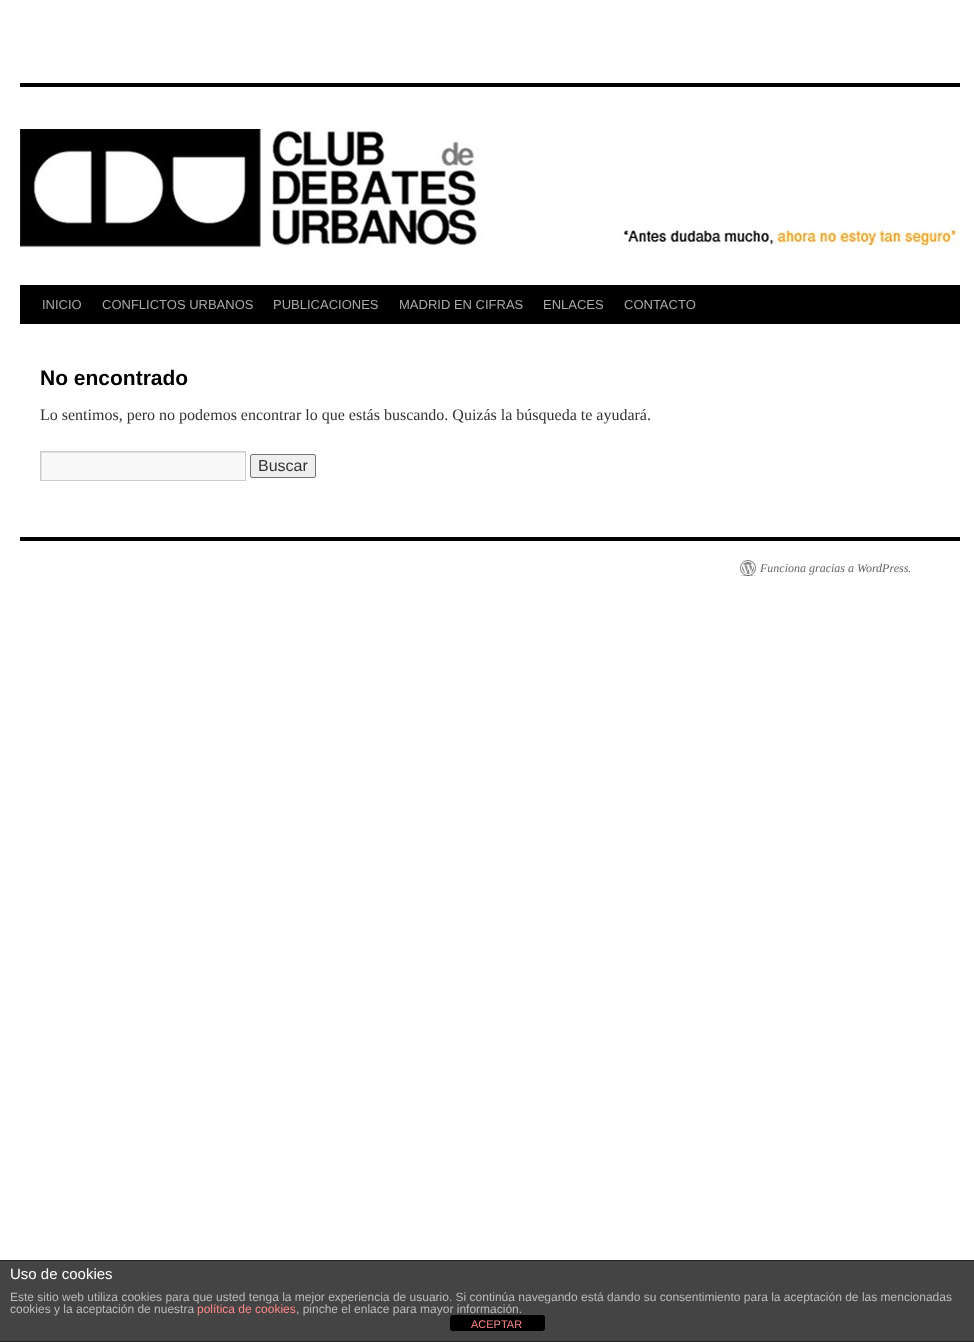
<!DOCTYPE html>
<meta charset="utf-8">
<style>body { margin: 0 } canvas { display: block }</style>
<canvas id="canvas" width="974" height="1342"></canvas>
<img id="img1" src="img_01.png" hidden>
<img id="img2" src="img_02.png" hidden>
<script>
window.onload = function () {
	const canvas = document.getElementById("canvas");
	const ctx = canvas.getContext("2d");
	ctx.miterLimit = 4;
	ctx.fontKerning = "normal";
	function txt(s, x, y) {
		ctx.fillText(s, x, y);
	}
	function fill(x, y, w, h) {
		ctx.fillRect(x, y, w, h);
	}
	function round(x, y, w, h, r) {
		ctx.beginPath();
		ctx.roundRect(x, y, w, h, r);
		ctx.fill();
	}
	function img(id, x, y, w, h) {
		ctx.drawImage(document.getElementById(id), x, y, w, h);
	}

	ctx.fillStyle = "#FFFFFF";
	fill(0, 0, 974, 1342);
	ctx.fillStyle = "#000000";
	fill(20, 83, 940, 4);
	fill(20, 285, 940, 39);
	img("img1", 20, 127, 940, 121);
	ctx.fillStyle = "#F9F9F9";
	fill(42, 453, 203, 27);
	ctx.save();
	ctx.beginPath();
	ctx.rect(41, 452, 204, 28);
	ctx.clip();
	ctx.fillStyle = "#E0E0E0";
	ctx.beginPath();
	ctx.moveTo(-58, 353);
	ctx.lineTo(344, 353);
	ctx.lineTo(344, 579);
	ctx.lineTo(-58, 579);
	ctx.closePath();
	ctx.moveTo(42, 453);
	ctx.lineTo(246, 453);
	ctx.lineTo(246, 481);
	ctx.lineTo(42, 481);
	ctx.closePath();
	ctx.fill("evenodd");
	ctx.restore();
	ctx.strokeStyle = "#CCCCCC";
	ctx.strokeRect(40.5, 451.5, 205, 29);
	ctx.fillStyle = "#EFEFEF";
	ctx.beginPath();
	ctx.roundRect(250.5, 454.5, 65, 23, 1.5);
	ctx.fill();
	ctx.strokeStyle = "#767676";
	ctx.stroke();
	ctx.fillStyle = "#000000";
	fill(20, 537, 940, 4);
	img("img2", 740, 560, 16, 16);
	ctx.fillStyle = "#444444";
	fill(0, 1261, 974, 80);
	ctx.fillStyle = "#222222";
	fill(0, 1260, 974, 1);
	fill(0, 1341, 974, 1);
	ctx.fillStyle = "#000000";
	round(450, 1315, 95, 16, 3);
	ctx.font = "13px Liberation Sans";
	ctx.fillStyle = "#AAAAAA";
	txt("INICIO", 42, 309);
	txt("CONFLICTOS URBANOS", 102, 309);
	txt("PUBLICACIONES", 273, 309);
	txt("MADRID EN CIFRAS", 399, 309);
	txt("ENLACES", 543, 309);
	txt("CONTACTO", 624, 309);
	ctx.font = "bold 21px Liberation Sans";
	ctx.fillStyle = "#000000";
	txt("No encontrado", 40, 385);
	ctx.font = "16px Liberation Serif";
	ctx.fillStyle = "#333333";
	txt("Lo sentimos, pero no podemos encontrar lo que estás buscando. Quizás la búsqueda te ayudará.", 40, 420);
	ctx.font = "16px Liberation Sans";
	txt("Buscar", 258, 471);
	ctx.font = "italic 12px Liberation Serif";
	ctx.fillStyle = "#666666";
	txt("Funciona gracias a WordPress.", 760, 572);
	ctx.font = "15px Liberation Sans";
	ctx.fillStyle = "#FFFFFF";
	txt("Uso de cookies", 10, 1279);
	ctx.font = "12px Liberation Sans";
	ctx.fillStyle = "#BBBBBB";
	txt("Este sitio web utiliza cookies para que usted tenga la mejor experiencia de usuario. Si continúa navegando está dando su consentimiento para la aceptación de las mencionadas", 10, 1301);
	txt("cookies y la aceptación de nuestra", 10, 1313);
	ctx.fillStyle = "#FF8888";
	txt("política de cookies", 197, 1313);
	ctx.fillStyle = "#BBBBBB";
	txt(", pinche el enlace para mayor información.", 296, 1313);
	ctx.font = "11px Liberation Sans";
	ctx.fillStyle = "#FF8888";
	txt("ACEPTAR", 471, 1328);
};
</script>
